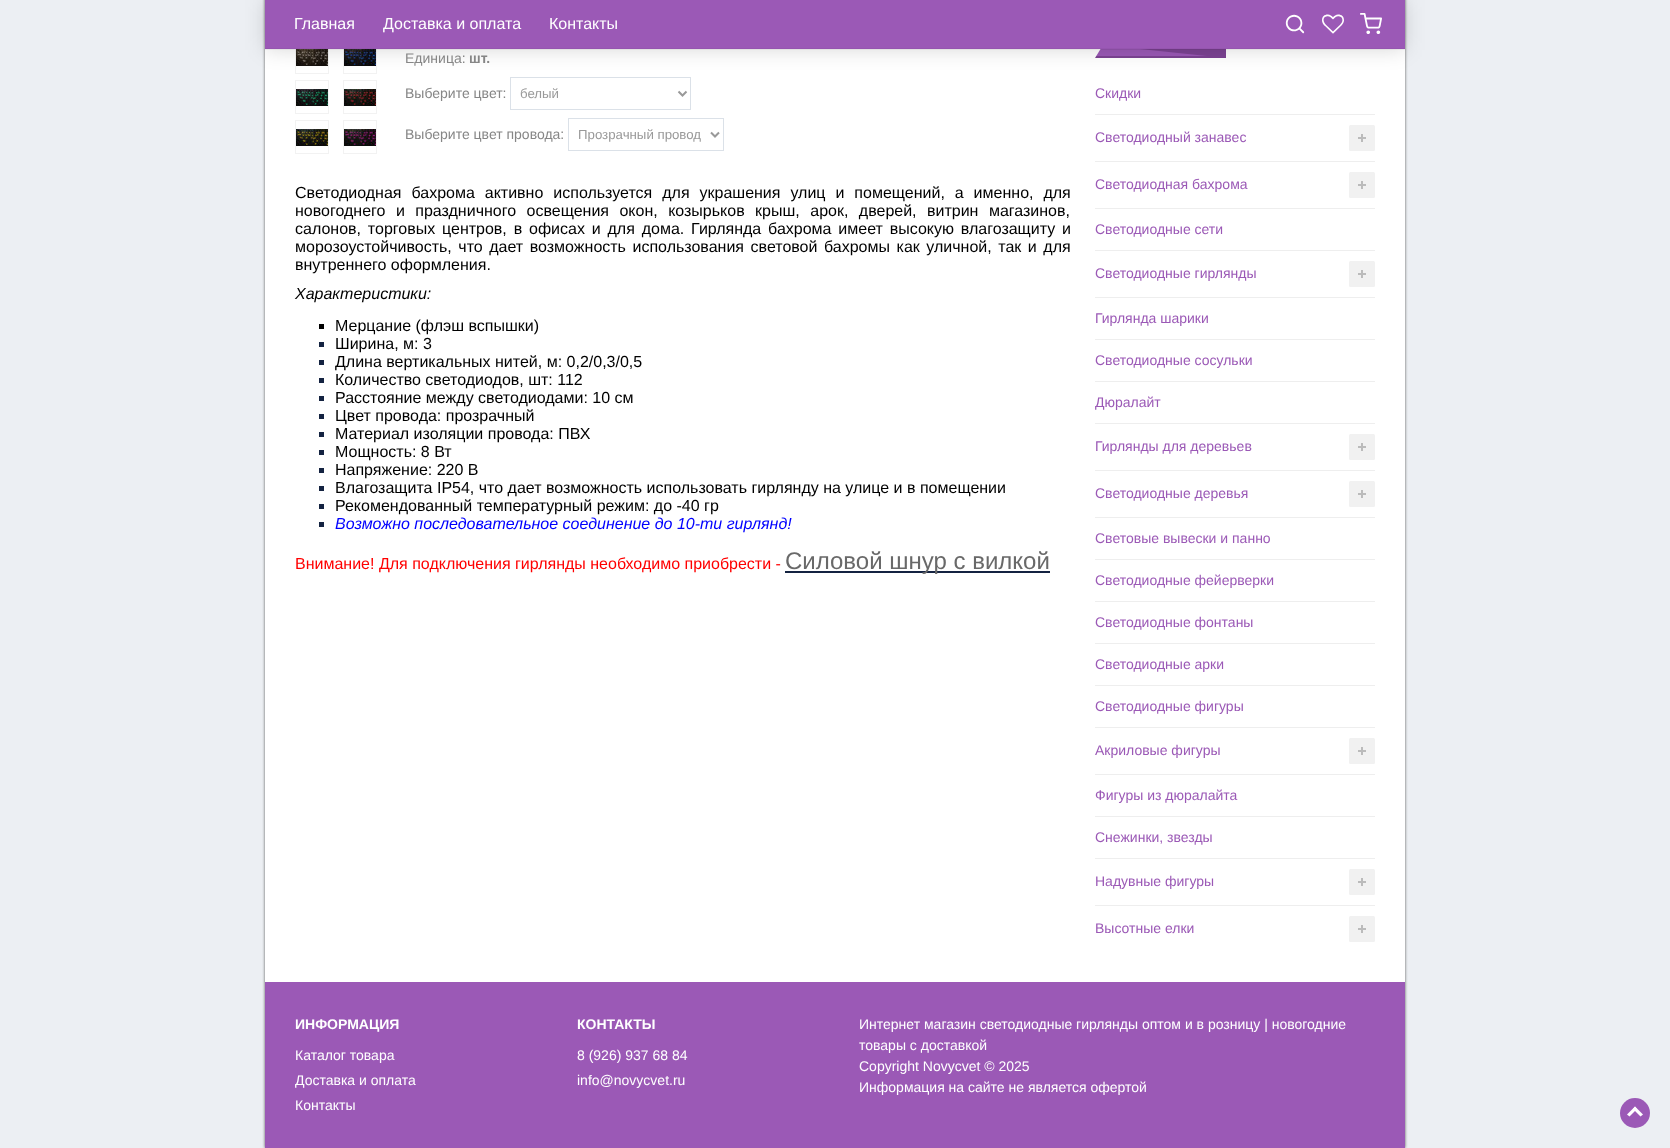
<!DOCTYPE html>
<meta charset="utf-8">
<style>body { margin: 0 } canvas { display: block }</style>
<canvas id="canvas" width="1670" height="1148"></canvas>
<img id="img1" src="img_04.png" hidden>
<img id="img2" src="img_05.png" hidden>
<img id="img3" src="img_01.png" hidden>
<img id="img4" src="img_02.png" hidden>
<img id="img5" src="img_03.png" hidden>
<img id="img6" src="img_06.png" hidden>
<img id="img7" src="img_07.png" hidden>
<img id="img8" src="img_08.png" hidden>
<img id="img9" src="img_09.png" hidden>
<script>
window.onload = function () {
	const canvas = document.getElementById("canvas");
	const ctx = canvas.getContext("2d");
	ctx.miterLimit = 4;
	ctx.fontKerning = "normal";
	function txt(s, x, y) {
		ctx.fillText(s, x, y);
	}
	function fill(x, y, w, h) {
		ctx.fillRect(x, y, w, h);
	}
	function round(x, y, w, h, r) {
		ctx.beginPath();
		ctx.roundRect(x, y, w, h, r);
		ctx.fill();
	}
	function img(id, x, y, w, h) {
		ctx.drawImage(document.getElementById(id), x, y, w, h);
	}

	ctx.fillStyle = "#ECEFF3";
	fill(0, 0, 1670, 1148);
	ctx.fillStyle = "#555555";
	ctx.filter = "blur(1.5px)";
	ctx.beginPath();
	ctx.rect(265, -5, 1140, 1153);
	ctx.fill();
	ctx.filter = "none";
	ctx.fillStyle = "#FFFFFF";
	fill(265, 49, 1140, 933);
	ctx.strokeStyle = "#F2F2F2";
	ctx.strokeRect(295.5, 40.5, 33, 33);
	img("img1", 296, 49, 32, 17);
	ctx.strokeRect(343.5, 40.5, 33, 33);
	img("img2", 344, 49, 32, 21);
	ctx.strokeRect(295.5, 80.5, 33, 33);
	ctx.strokeRect(343.5, 80.5, 33, 33);
	ctx.strokeStyle = "#DBE1E8";
	ctx.strokeRect(510.5, 77.5, 180, 32);
	ctx.fillStyle = "#9B59B6";
	fill(1096, 49, 111, 7);
	ctx.fillStyle = "#7C4393";
	fill(1095, 56, 131, 2);
	ctx.fillStyle = "#FFFFFF";
	ctx.beginPath();
	ctx.moveTo(1095, 58);
	ctx.lineTo(1095, 16);
	ctx.lineTo(1108, 37);
	ctx.closePath();
	ctx.fill();
	ctx.fillStyle = "#7C4393";
	ctx.beginPath();
	ctx.moveTo(1226, 36);
	ctx.lineTo(1226, 58);
	ctx.lineTo(1121, 47);
	ctx.closePath();
	ctx.fill();
	ctx.fillStyle = "rgba(0, 0, 0, 0.15)";
	ctx.filter = "blur(10px)";
	ctx.beginPath();
	ctx.rect(265, 0, 1140, 50);
	ctx.fill();
	ctx.filter = "none";
	ctx.fillStyle = "rgba(0, 0, 0, 0.04)";
	fill(265, 49, 1140, 1);
	ctx.fillStyle = "#9B59B6";
	fill(265, 0, 1140, 48);
	ctx.fillStyle = "#9555AF";
	fill(265, 48, 1140, 1);
	img("img3", 1285, 14, 20, 20);
	img("img4", 1322, 14, 22, 20);
	img("img5", 1360, 13, 22, 21);
	img("img6", 296, 89, 32, 17);
	img("img7", 344, 89, 32, 17);
	ctx.strokeStyle = "#F2F2F2";
	ctx.strokeRect(295.5, 120.5, 33, 33);
	img("img8", 296, 129, 32, 18);
	ctx.strokeRect(343.5, 120.5, 33, 33);
	img("img9", 344, 129, 32, 17);
	ctx.beginPath();
	ctx.moveTo(678.5, 91.5);
	ctx.lineTo(682.5, 95.5);
	ctx.lineTo(686.5, 91.5);
	ctx.strokeStyle = "#999999";
	ctx.lineWidth = 2;
	ctx.stroke();
	ctx.strokeStyle = "#DBE1E8";
	ctx.lineWidth = 1;
	ctx.strokeRect(568.5, 118.5, 155, 32);
	ctx.beginPath();
	ctx.moveTo(711, 132.5);
	ctx.lineTo(715, 136.5);
	ctx.lineTo(719, 132.5);
	ctx.strokeStyle = "#999999";
	ctx.lineWidth = 2;
	ctx.stroke();
	ctx.fillStyle = "#000000";
	fill(319, 324, 5, 5);
	ctx.fillStyle = "#142341";
	fill(319, 342, 5, 5);
	fill(319, 360, 5, 5);
	fill(319, 378, 5, 5);
	fill(319, 396, 5, 5);
	fill(319, 414, 5, 5);
	fill(319, 432, 5, 5);
	fill(319, 450, 5, 5);
	fill(319, 468, 5, 5);
	fill(319, 486, 5, 5);
	fill(319, 504, 5, 5);
	fill(319, 522, 5, 5);
	fill(785, 571, 265, 2);
	ctx.fillStyle = "#EEEEEE";
	fill(1095, 114, 280, 1);
	fill(1095, 161, 280, 1);
	ctx.fillStyle = "#F1F1F1";
	round(1349, 125, 26, 26, 1.5);
	ctx.fillStyle = "#BBBBBB";
	fill(1358, 137, 8, 2);
	fill(1361, 134, 2, 8);
	ctx.fillStyle = "#EEEEEE";
	fill(1095, 208, 280, 1);
	ctx.fillStyle = "#F1F1F1";
	round(1349, 172, 26, 26, 1.5);
	ctx.fillStyle = "#BBBBBB";
	fill(1358, 184, 8, 2);
	fill(1361, 181, 2, 8);
	ctx.fillStyle = "#EEEEEE";
	fill(1095, 250, 280, 1);
	fill(1095, 297, 280, 1);
	ctx.fillStyle = "#F1F1F1";
	round(1349, 261, 26, 26, 1.5);
	ctx.fillStyle = "#BBBBBB";
	fill(1358, 273, 8, 2);
	fill(1361, 270, 2, 8);
	ctx.fillStyle = "#EEEEEE";
	fill(1095, 339, 280, 1);
	fill(1095, 381, 280, 1);
	fill(1095, 423, 280, 1);
	fill(1095, 470, 280, 1);
	ctx.fillStyle = "#F1F1F1";
	round(1349, 434, 26, 26, 1.5);
	ctx.fillStyle = "#BBBBBB";
	fill(1358, 446, 8, 2);
	fill(1361, 443, 2, 8);
	ctx.fillStyle = "#EEEEEE";
	fill(1095, 517, 280, 1);
	ctx.fillStyle = "#F1F1F1";
	round(1349, 481, 26, 26, 1.5);
	ctx.fillStyle = "#BBBBBB";
	fill(1358, 493, 8, 2);
	fill(1361, 490, 2, 8);
	ctx.fillStyle = "#EEEEEE";
	fill(1095, 559, 280, 1);
	fill(1095, 601, 280, 1);
	fill(1095, 643, 280, 1);
	fill(1095, 685, 280, 1);
	fill(1095, 727, 280, 1);
	fill(1095, 774, 280, 1);
	ctx.fillStyle = "#F1F1F1";
	round(1349, 738, 26, 26, 1.5);
	ctx.fillStyle = "#BBBBBB";
	fill(1358, 750, 8, 2);
	fill(1361, 747, 2, 8);
	ctx.fillStyle = "#EEEEEE";
	fill(1095, 816, 280, 1);
	fill(1095, 858, 280, 1);
	fill(1095, 905, 280, 1);
	ctx.fillStyle = "#F1F1F1";
	round(1349, 869, 26, 26, 1.5);
	ctx.fillStyle = "#BBBBBB";
	fill(1358, 881, 8, 2);
	fill(1361, 878, 2, 8);
	ctx.fillStyle = "#F1F1F1";
	round(1349, 916, 26, 26, 1.5);
	ctx.fillStyle = "#BBBBBB";
	fill(1358, 928, 8, 2);
	fill(1361, 925, 2, 8);
	ctx.fillStyle = "#9B59B6";
	fill(265, 982, 1140, 166);
	ctx.beginPath();
	ctx.arc(1635, 1113, 15, 0, Math.PI * 2);
	ctx.fill();
	ctx.fillStyle = "#FFFFFF";
	ctx.beginPath();
	ctx.moveTo(1627, 1114.5);
	ctx.lineTo(1635, 1106.5);
	ctx.lineTo(1637, 1109);
	ctx.lineTo(1629.5, 1116.5);
	ctx.closePath();
	ctx.fill();
	ctx.beginPath();
	ctx.moveTo(1633, 1109);
	ctx.lineTo(1635, 1106.5);
	ctx.lineTo(1643, 1114.5);
	ctx.lineTo(1640.5, 1116.5);
	ctx.closePath();
	ctx.fill();
	ctx.font = "16px Liberation Sans";
	txt("Главная", 294, 29);
	txt("Доставка и оплата", 383, 29);
	txt("Контакты", 549, 29);
	ctx.font = "14px Liberation Sans";
	ctx.fillStyle = "#868686";
	txt("Единица:", 405, 63);
	ctx.font = "bold 14px Liberation Sans";
	txt("шт.", 469, 63);
	ctx.font = "14px Liberation Sans";
	txt("Выберите цвет:", 405, 98);
	ctx.font = "13.25px Liberation Sans";
	ctx.fillStyle = "#999999";
	txt("белый", 520, 98);
	ctx.font = "14px Liberation Sans";
	ctx.fillStyle = "#868686";
	txt("Выберите цвет провода:", 405, 139);
	ctx.font = "13.25px Liberation Sans";
	ctx.fillStyle = "#999999";
	txt("Прозрачный провод", 578, 139);
	ctx.wordSpacing = "5.5px";
	ctx.font = "16px Liberation Sans";
	ctx.fillStyle = "#000000";
	txt("Светодиодная бахрома активно используется для украшения улиц и помещений, а именно, для", 295, 198);
	ctx.wordSpacing = "6px";
	txt("новогоднего и праздничного освещения окон, козырьков крыш, арок, дверей, витрин магазинов,", 295, 216);
	ctx.wordSpacing = "2.4px";
	txt("салонов, торговых центров, в офисах и для дома. Гирлянда бахрома имеет высокую влагозащиту и", 295, 234);
	ctx.wordSpacing = "2.1px";
	txt("морозоустойчивость, что дает возможность использования световой бахромы как уличной, так и для", 295, 252);
	ctx.wordSpacing = "0px";
	txt("внутреннего оформления.", 295, 270);
	ctx.font = "italic 16px Liberation Sans";
	txt("Характеристики:", 295, 299);
	ctx.font = "16px Liberation Sans";
	txt("Мерцание (флэш вспышки)", 335, 331);
	txt("Ширина, м: 3", 335, 349);
	txt("Длина вертикальных нитей, м: 0,2/0,3/0,5", 335, 367);
	txt("Количество светодиодов, шт: 112", 335, 385);
	txt("Расстояние между светодиодами: 10 см", 335, 403);
	txt("Цвет провода: прозрачный", 335, 421);
	txt("Материал изоляции провода: ПВХ", 335, 439);
	txt("Мощность: 8 Вт", 335, 457);
	txt("Напряжение: 220 В", 335, 475);
	txt("Влагозащита IP54, что дает возможность использовать гирлянду на улице и в помещении", 335, 493);
	txt("Рекомендованный температурный режим: до -40 гр", 335, 511);
	ctx.font = "italic 16px Liberation Sans";
	ctx.fillStyle = "#0000FF";
	txt("Возможно последовательное соединение до 10-ти гирлянд!", 335, 529);
	ctx.font = "16px Liberation Sans";
	ctx.fillStyle = "#FF0000";
	txt("Внимание! Для подключения гирлянды необходимо приобрести -", 295, 569);
	ctx.font = "24px Liberation Sans";
	ctx.fillStyle = "#696969";
	txt("Силовой шнур с вилкой", 785, 569);
	ctx.font = "14px Liberation Sans";
	ctx.fillStyle = "#9B59B6";
	txt("Скидки", 1095, 98);
	txt("Светодиодный занавес", 1095, 142);
	txt("Светодиодная бахрома", 1095, 189);
	txt("Светодиодные сети", 1095, 234);
	txt("Светодиодные гирлянды", 1095, 278);
	txt("Гирлянда шарики", 1095, 323);
	txt("Светодиодные сосульки", 1095, 365);
	txt("Дюралайт", 1095, 407);
	txt("Гирлянды для деревьев", 1095, 451);
	txt("Светодиодные деревья", 1095, 498);
	txt("Световые вывески и панно", 1095, 543);
	txt("Светодиодные фейерверки", 1095, 585);
	txt("Светодиодные фонтаны", 1095, 627);
	txt("Светодиодные арки", 1095, 669);
	txt("Светодиодные фигуры", 1095, 711);
	txt("Акриловые фигуры", 1095, 755);
	txt("Фигуры из дюралайта", 1095, 800);
	txt("Снежинки, звезды", 1095, 842);
	txt("Надувные фигуры", 1095, 886);
	txt("Высотные елки", 1095, 933);
	ctx.font = "bold 14px Liberation Sans";
	ctx.fillStyle = "#FFFFFF";
	txt("ИНФОРМАЦИЯ", 295, 1029);
	ctx.font = "14px Liberation Sans";
	txt("Каталог товара", 295, 1060);
	txt("Доставка и оплата", 295, 1085);
	txt("Контакты", 295, 1110);
	ctx.font = "bold 14px Liberation Sans";
	txt("КОНТАКТЫ", 577, 1029);
	ctx.font = "14px Liberation Sans";
	txt("8 (926) 937 68 84", 577, 1060);
	txt("info@novycvet.ru", 577, 1085);
	txt("Интернет магазин светодиодные гирлянды оптом и в розницу | новогодние", 859, 1029);
	txt("товары с доставкой", 859, 1050);
	txt("Copyright Novycvet © 2025", 859, 1071);
	txt("Информация на сайте не является офертой", 859, 1092);
};
</script>
